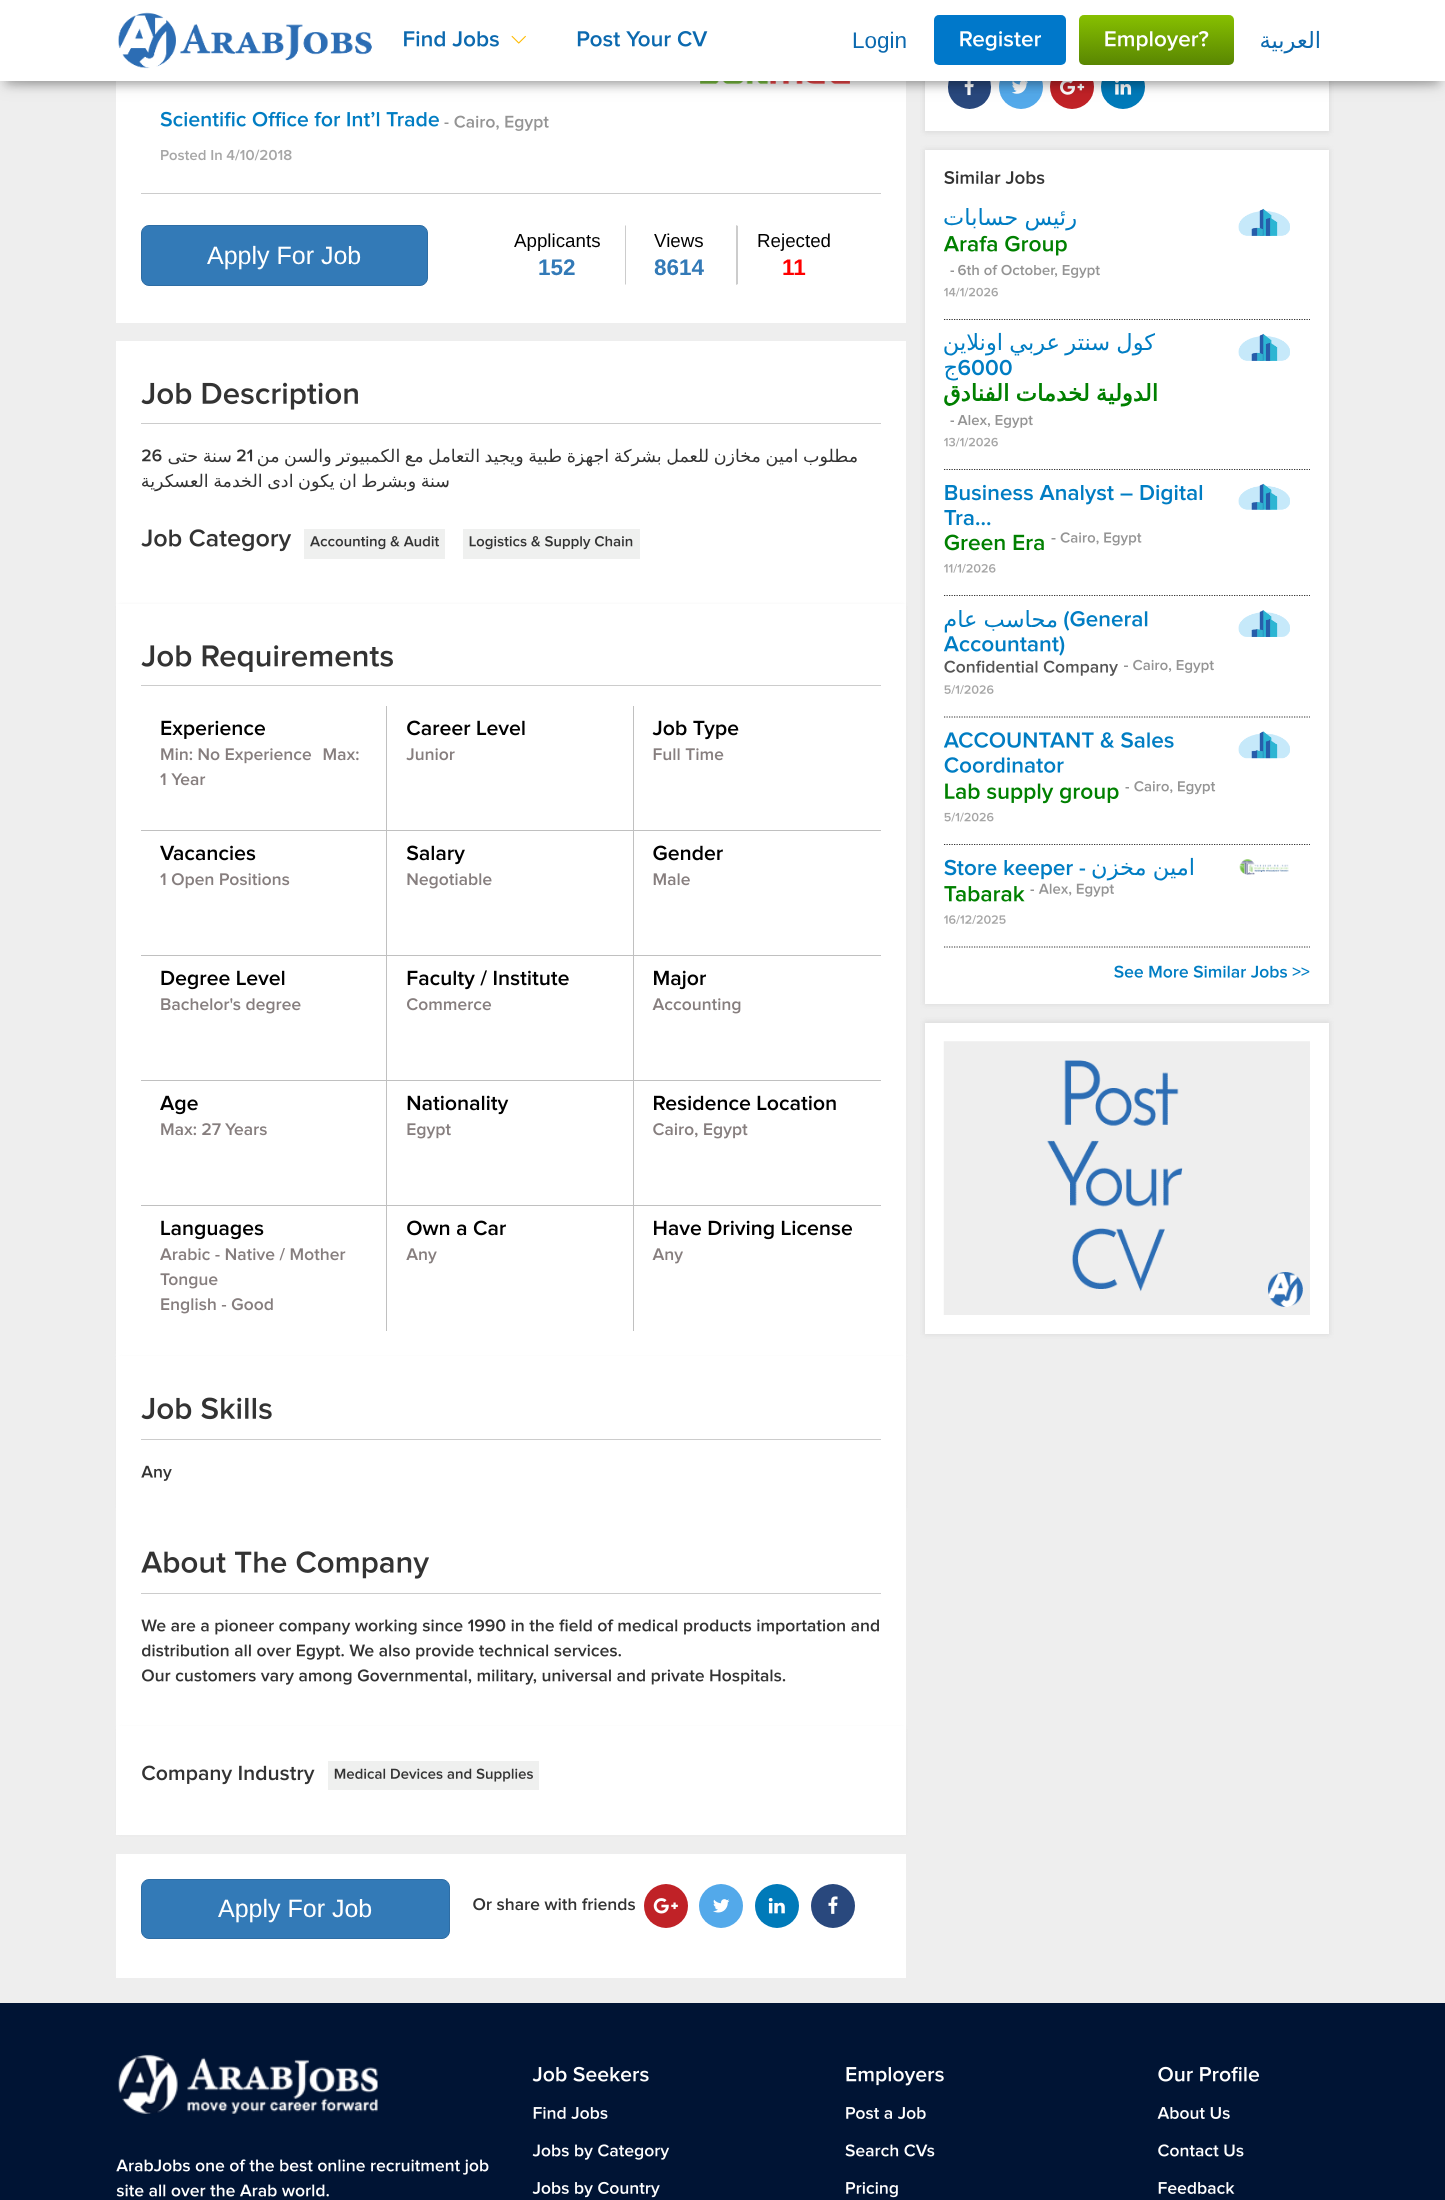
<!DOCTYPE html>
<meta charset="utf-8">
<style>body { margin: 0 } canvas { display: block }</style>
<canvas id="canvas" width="1445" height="2200"></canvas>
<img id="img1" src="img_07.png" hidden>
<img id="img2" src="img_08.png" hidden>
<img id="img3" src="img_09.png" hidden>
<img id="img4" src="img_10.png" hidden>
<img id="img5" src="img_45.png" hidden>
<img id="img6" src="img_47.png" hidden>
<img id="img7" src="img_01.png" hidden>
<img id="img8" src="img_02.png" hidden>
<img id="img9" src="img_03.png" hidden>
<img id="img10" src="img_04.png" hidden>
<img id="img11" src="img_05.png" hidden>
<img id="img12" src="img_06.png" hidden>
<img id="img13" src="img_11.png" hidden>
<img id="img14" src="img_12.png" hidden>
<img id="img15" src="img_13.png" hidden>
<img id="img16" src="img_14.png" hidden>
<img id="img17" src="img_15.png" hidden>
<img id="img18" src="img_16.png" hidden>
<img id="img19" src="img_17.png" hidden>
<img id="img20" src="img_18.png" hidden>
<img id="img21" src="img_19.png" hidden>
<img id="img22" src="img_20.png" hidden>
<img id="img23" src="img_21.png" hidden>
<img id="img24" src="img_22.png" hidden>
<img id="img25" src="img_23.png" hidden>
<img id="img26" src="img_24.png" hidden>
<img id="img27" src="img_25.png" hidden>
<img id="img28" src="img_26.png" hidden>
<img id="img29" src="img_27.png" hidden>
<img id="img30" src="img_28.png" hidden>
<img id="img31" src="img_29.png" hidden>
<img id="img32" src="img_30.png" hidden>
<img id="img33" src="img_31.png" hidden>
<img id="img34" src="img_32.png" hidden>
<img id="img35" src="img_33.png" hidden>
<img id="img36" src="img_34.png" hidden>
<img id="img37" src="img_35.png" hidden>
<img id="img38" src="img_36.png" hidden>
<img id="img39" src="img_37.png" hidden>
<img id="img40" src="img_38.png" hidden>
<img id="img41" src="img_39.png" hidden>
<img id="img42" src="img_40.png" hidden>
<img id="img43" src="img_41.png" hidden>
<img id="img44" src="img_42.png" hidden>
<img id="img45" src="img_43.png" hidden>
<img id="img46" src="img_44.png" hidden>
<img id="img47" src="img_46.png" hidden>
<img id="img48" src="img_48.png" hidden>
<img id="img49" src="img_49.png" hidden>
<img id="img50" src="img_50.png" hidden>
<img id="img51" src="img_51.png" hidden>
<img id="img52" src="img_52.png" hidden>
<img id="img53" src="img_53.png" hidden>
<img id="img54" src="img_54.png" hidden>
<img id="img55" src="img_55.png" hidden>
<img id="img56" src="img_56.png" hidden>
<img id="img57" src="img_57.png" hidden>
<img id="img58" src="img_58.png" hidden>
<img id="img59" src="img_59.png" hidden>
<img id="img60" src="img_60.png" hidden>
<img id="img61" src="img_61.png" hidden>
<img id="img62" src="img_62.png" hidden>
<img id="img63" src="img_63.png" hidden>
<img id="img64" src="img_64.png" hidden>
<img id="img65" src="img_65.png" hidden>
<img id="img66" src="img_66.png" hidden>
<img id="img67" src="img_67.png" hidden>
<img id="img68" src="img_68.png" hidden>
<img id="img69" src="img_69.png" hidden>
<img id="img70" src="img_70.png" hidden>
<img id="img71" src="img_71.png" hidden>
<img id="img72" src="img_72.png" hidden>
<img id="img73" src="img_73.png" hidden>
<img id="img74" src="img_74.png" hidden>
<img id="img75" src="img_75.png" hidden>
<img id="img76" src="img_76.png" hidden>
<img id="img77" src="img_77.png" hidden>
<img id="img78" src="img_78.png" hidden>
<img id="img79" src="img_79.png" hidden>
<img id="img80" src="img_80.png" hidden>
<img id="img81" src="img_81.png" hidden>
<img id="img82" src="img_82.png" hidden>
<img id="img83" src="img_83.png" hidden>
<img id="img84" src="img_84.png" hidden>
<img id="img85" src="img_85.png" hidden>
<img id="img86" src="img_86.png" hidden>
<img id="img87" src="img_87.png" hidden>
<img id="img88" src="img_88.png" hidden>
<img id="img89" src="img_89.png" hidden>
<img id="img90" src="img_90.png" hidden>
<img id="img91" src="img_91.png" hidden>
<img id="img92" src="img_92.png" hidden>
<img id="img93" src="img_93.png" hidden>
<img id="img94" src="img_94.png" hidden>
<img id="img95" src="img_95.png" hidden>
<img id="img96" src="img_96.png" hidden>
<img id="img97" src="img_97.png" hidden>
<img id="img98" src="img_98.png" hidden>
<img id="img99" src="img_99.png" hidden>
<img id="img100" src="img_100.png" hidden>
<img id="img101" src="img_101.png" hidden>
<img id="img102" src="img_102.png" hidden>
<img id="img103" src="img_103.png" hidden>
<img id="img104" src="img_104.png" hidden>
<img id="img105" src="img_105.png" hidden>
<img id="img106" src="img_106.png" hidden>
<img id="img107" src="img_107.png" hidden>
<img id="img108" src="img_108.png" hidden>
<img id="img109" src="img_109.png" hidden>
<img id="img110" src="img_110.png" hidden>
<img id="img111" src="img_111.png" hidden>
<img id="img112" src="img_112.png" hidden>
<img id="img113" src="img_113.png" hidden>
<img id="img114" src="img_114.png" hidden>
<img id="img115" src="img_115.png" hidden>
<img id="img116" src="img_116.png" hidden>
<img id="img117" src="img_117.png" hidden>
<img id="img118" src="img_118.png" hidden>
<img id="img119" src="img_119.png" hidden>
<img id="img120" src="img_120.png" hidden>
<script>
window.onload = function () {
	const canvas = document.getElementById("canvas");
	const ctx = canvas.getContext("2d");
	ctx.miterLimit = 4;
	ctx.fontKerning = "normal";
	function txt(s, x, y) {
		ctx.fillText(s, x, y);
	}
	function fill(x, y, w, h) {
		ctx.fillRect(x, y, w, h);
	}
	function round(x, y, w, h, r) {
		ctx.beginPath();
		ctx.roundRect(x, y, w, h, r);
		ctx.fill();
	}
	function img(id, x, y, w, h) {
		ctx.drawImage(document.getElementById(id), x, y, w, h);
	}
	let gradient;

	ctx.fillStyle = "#EEEEEE";
	fill(0, 0, 1445, 2200);
	ctx.fillStyle = "#DDDDDD";
	ctx.filter = "blur(2px)";
	ctx.beginPath();
	ctx.rect(924, 1, 406, 132);
	ctx.fill();
	ctx.filter = "none";
	ctx.fillStyle = "#FFFFFF";
	fill(925, 81, 404, 50);
	ctx.fillStyle = "#007AB9";
	ctx.beginPath();
	ctx.arc(1123, 87, 22, 0, Math.PI * 2);
	ctx.fill();
	img("img1", 1115, 81, 17, 14);
	ctx.fillStyle = "#C02227";
	ctx.beginPath();
	ctx.arc(1072, 87, 22, 0, Math.PI * 2);
	ctx.fill();
	img("img2", 1060, 81, 25, 14);
	ctx.fillStyle = "#53A9EA";
	ctx.beginPath();
	ctx.arc(1021, 87, 22, 0, Math.PI * 2);
	ctx.fill();
	img("img3", 1012, 81, 16, 13);
	ctx.fillStyle = "#29487D";
	round(948, 65, 43, 44, 21.5);
	img("img4", 964, 81, 10, 15);
	ctx.fillStyle = "#FFFFFF";
	fill(116, 81, 790, 242);
	img("img5", 700, 81, 150, 3);
	ctx.fillStyle = "rgba(0, 0, 0, 0.2)";
	ctx.filter = "blur(4.5px)";
	ctx.beginPath();
	ctx.rect(6, 16, 1433, 69);
	ctx.fill();
	ctx.filter = "none";
	img("img6", 160, 111, 279, 16);
	ctx.fillStyle = "rgba(0, 0, 0, 0.12)";
	ctx.filter = "blur(9.5px)";
	ctx.beginPath();
	ctx.rect(0, 1, 1445, 82);
	ctx.fill();
	ctx.filter = "none";
	ctx.fillStyle = "rgba(0, 0, 0, 0.42)";
	ctx.filter = "blur(9px)";
	ctx.beginPath();
	ctx.rect(15, 21, 1415, 52);
	ctx.fill();
	ctx.filter = "none";
	ctx.fillStyle = "#FFFFFF";
	fill(0, 0, 1445, 81);
	gradient = ctx.createLinearGradient(1156, 15, 1156, 65);
	gradient.addColorStop(0, "#87C000");
	gradient.addColorStop(1, "#598602");
	ctx.fillStyle = gradient;
	round(1079, 15, 155, 50, 5);
	img("img7", 1105, 31, 104, 20);
	ctx.fillStyle = "#0078CA";
	round(934, 15, 132, 50, 5);
	img("img8", 960, 31, 81, 20);
	img("img9", 577, 31, 131, 16);
	img("img10", 511, 35, 15, 9);
	img("img11", 404, 31, 95, 16);
	img("img12", 118, 12, 254, 57);
	ctx.fillStyle = "#DDDDDD";
	ctx.filter = "blur(2px)";
	ctx.beginPath();
	ctx.rect(924, 149, 406, 856);
	ctx.fill();
	ctx.filter = "none";
	ctx.fillStyle = "#FFFFFF";
	fill(925, 150, 404, 854);
	img("img13", 944, 171, 101, 13);
	ctx.beginPath();
	ctx.moveTo(944, 319.5);
	ctx.lineTo(1310, 319.5);
	ctx.strokeStyle = "#333333";
	ctx.lineWidth = 1.2;
	ctx.setLineDash([1.25, 1.25]);
	ctx.stroke();
	img("img14", 1238, 208, 52, 28);
	img("img15", 944, 235, 123, 21);
	img("img16", 958, 264, 142, 14);
	ctx.fillStyle = "#949494";
	ctx.beginPath();
	ctx.moveTo(954, 272);
	ctx.lineTo(950.5, 272);
	ctx.lineTo(950.5, 270.5);
	ctx.lineTo(954, 270.5);
	ctx.closePath();
	ctx.fill();
	img("img17", 944, 287, 54, 10);
	ctx.beginPath();
	ctx.moveTo(944, 469.5);
	ctx.lineTo(1310, 469.5);
	ctx.stroke();
	img("img18", 1238, 333, 52, 28);
	img("img19", 958, 359, 54, 17);
	img("img20", 957, 415, 76, 13);
	ctx.beginPath();
	ctx.moveTo(954, 422);
	ctx.lineTo(950.5, 422);
	ctx.lineTo(950.5, 420.5);
	ctx.lineTo(954, 420.5);
	ctx.closePath();
	ctx.fill();
	img("img21", 944, 437, 54, 10);
	ctx.beginPath();
	ctx.moveTo(944, 595.5);
	ctx.lineTo(1310, 595.5);
	ctx.stroke();
	img("img22", 1238, 483, 52, 27);
	img("img23", 945, 484, 258, 21);
	img("img24", 944, 510, 47, 16);
	img("img25", 1060, 532, 82, 14);
	ctx.beginPath();
	ctx.moveTo(1055.5, 539.5);
	ctx.lineTo(1051.5, 539.5);
	ctx.lineTo(1051.5, 538);
	ctx.lineTo(1055.5, 538);
	ctx.closePath();
	ctx.fill();
	img("img26", 944, 534, 100, 17);
	img("img27", 944, 563, 52, 10);
	ctx.beginPath();
	ctx.moveTo(944, 717);
	ctx.lineTo(1310, 717);
	ctx.stroke();
	img("img28", 1238, 610, 52, 27);
	img("img29", 1064, 610, 84, 21);
	img("img30", 944, 635, 121, 21);
	img("img31", 1133, 659, 81, 14);
	ctx.beginPath();
	ctx.moveTo(1128, 667);
	ctx.lineTo(1124, 667);
	ctx.lineTo(1124, 665.5);
	ctx.lineTo(1128, 665.5);
	ctx.closePath();
	ctx.fill();
	img("img32", 944, 660, 174, 16);
	img("img33", 944, 685, 50, 9);
	ctx.beginPath();
	ctx.moveTo(944, 844.5);
	ctx.lineTo(1310, 844.5);
	ctx.stroke();
	img("img34", 1238, 731, 52, 28);
	img("img35", 944, 732, 230, 16);
	img("img36", 944, 757, 120, 16);
	img("img37", 1134, 781, 82, 14);
	ctx.beginPath();
	ctx.moveTo(1129, 788.5);
	ctx.lineTo(1125.5, 788.5);
	ctx.lineTo(1125.5, 787);
	ctx.lineTo(1129, 787);
	ctx.closePath();
	ctx.fill();
	img("img38", 945, 783, 174, 21);
	img("img39", 944, 812, 50, 10);
	ctx.beginPath();
	ctx.moveTo(944, 947);
	ctx.lineTo(1310, 947);
	ctx.stroke();
	img("img40", 1239, 859, 50, 16);
	img("img41", 944, 859, 142, 21);
	img("img42", 1038, 883, 76, 14);
	ctx.beginPath();
	ctx.moveTo(1034, 891);
	ctx.lineTo(1030.5, 891);
	ctx.lineTo(1030.5, 889.5);
	ctx.lineTo(1034, 889.5);
	ctx.closePath();
	ctx.fill();
	img("img43", 944, 886, 81, 16);
	img("img44", 944, 915, 62, 9);
	img("img45", 1114, 965, 196, 13);
	ctx.fillStyle = "#DDDDDD";
	ctx.filter = "blur(2px)";
	ctx.beginPath();
	ctx.rect(924, 1021, 406, 314);
	ctx.fill();
	ctx.filter = "none";
	ctx.fillStyle = "#FFFFFF";
	fill(925, 1023, 404, 311);
	img("img46", 943, 1041, 367, 274);
	ctx.fillStyle = "#CCCCCC";
	fill(141, 193, 740, 1);
	img("img47", 454, 115, 95, 16);
	ctx.fillStyle = "#949494";
	ctx.beginPath();
	ctx.moveTo(448.5, 124);
	ctx.lineTo(444.5, 124);
	ctx.lineTo(444.5, 122.5);
	ctx.lineTo(448.5, 122.5);
	ctx.closePath();
	ctx.fill();
	img("img48", 226, 149, 66, 12);
	img("img49", 161, 150, 61, 11);
	ctx.fillStyle = "#CCCCCC";
	ctx.beginPath();
	ctx.moveTo(736, 285);
	ctx.lineTo(736, 225);
	ctx.lineTo(738, 226);
	ctx.lineTo(738, 284);
	ctx.closePath();
	ctx.fill();
	ctx.beginPath();
	ctx.moveTo(625, 285);
	ctx.lineTo(625, 225);
	ctx.lineTo(626, 226);
	ctx.lineTo(626, 284);
	ctx.closePath();
	ctx.fill();
	ctx.fillStyle = "#337AB7";
	ctx.beginPath();
	ctx.roundRect(141.5, 225.5, 286, 60, 7.5);
	ctx.fill();
	ctx.strokeStyle = "#2E6DA4";
	ctx.lineWidth = 1;
	ctx.setLineDash([]);
	ctx.stroke();
	ctx.fillStyle = "#FFFFFF";
	fill(116, 341, 790, 263);
	ctx.fillStyle = "#CCCCCC";
	fill(141, 423, 740, 1);
	img("img50", 141, 382, 217, 28);
	img("img51", 237, 449, 16, 13);
	img("img52", 142, 449, 20, 13);
	ctx.fillStyle = "#EFF0EF";
	fill(463, 529, 177, 30);
	img("img53", 469, 536, 164, 14);
	fill(304, 529, 141, 30);
	img("img54", 310, 536, 130, 14);
	img("img55", 141, 529, 151, 23);
	ctx.fillStyle = "#DDDDDD";
	ctx.filter = "blur(2px)";
	ctx.beginPath();
	ctx.rect(119, 606, 785, 748);
	ctx.fill();
	ctx.filter = "none";
	ctx.fillStyle = "#FFFFFF";
	fill(116, 604, 790, 752);
	ctx.fillStyle = "#CCCCCC";
	fill(141, 685, 740, 1);
	img("img56", 141, 645, 252, 27);
	ctx.fillStyle = "#C0C0C0";
	fill(633, 706, 1, 625);
	fill(388, 830, 493, 1);
	img("img57", 407, 720, 118, 16);
	img("img58", 406, 748, 49, 13);
	fill(386, 706, 1, 625);
	fill(141, 830, 247, 1);
	img("img59", 161, 720, 104, 19);
	img("img60", 323, 748, 36, 13);
	img("img61", 161, 748, 151, 16);
	img("img62", 171, 773, 35, 13);
	img("img63", 160, 773, 6, 12);
	img("img64", 652, 720, 87, 20);
	img("img65", 653, 748, 71, 13);
	fill(141, 955, 740, 1);
	img("img66", 160, 845, 96, 16);
	img("img67", 160, 873, 130, 16);
	img("img68", 653, 845, 70, 16);
	img("img69", 653, 873, 37, 13);
	img("img70", 407, 845, 58, 20);
	img("img71", 407, 873, 85, 16);
	fill(141, 1080, 740, 1);
	img("img72", 161, 970, 124, 20);
	img("img73", 161, 998, 140, 16);
	img("img74", 654, 970, 52, 20);
	img("img75", 652, 998, 89, 16);
	img("img76", 407, 970, 162, 20);
	img("img77", 407, 998, 85, 13);
	fill(141, 1205, 740, 1);
	img("img78", 160, 1095, 38, 20);
	img("img79", 225, 1123, 42, 13);
	img("img80", 161, 1123, 60, 13);
	img("img81", 654, 1095, 182, 16);
	img("img82", 653, 1123, 95, 16);
	img("img83", 407, 1095, 102, 20);
	img("img84", 407, 1123, 44, 16);
	img("img85", 654, 1220, 199, 20);
	img("img86", 652, 1248, 31, 16);
	img("img87", 407, 1220, 99, 16);
	img("img88", 406, 1248, 31, 16);
	img("img89", 161, 1220, 103, 20);
	img("img90", 160, 1248, 186, 13);
	img("img91", 160, 1273, 58, 16);
	img("img92", 161, 1298, 112, 16);
	ctx.fillStyle = "#DDDDDD";
	ctx.filter = "blur(2px)";
	ctx.beginPath();
	ctx.rect(119, 1359, 785, 149);
	ctx.fill();
	ctx.filter = "none";
	ctx.fillStyle = "#FFFFFF";
	fill(116, 1356, 790, 370);
	ctx.fillStyle = "#CCCCCC";
	fill(141, 1439, 740, 1);
	img("img93", 141, 1397, 131, 23);
	img("img94", 141, 1465, 31, 16);
	fill(141, 1593, 740, 1);
	img("img95", 141, 1551, 288, 28);
	img("img96", 141, 1619, 738, 16);
	img("img97", 142, 1644, 479, 16);
	img("img98", 142, 1669, 644, 16);
	ctx.fillStyle = "#DDDDDD";
	ctx.filter = "blur(2px)";
	ctx.beginPath();
	ctx.rect(119, 1729, 785, 104);
	ctx.fill();
	ctx.filter = "none";
	ctx.fillStyle = "#FFFFFF";
	fill(116, 1726, 790, 109);
	ctx.fillStyle = "#EFF0EF";
	fill(328, 1761, 211, 29);
	img("img99", 334, 1768, 199, 14);
	img("img100", 142, 1765, 173, 20);
	ctx.fillStyle = "#FFFFFF";
	fill(116, 1854, 790, 124);
	ctx.fillStyle = "#29487D";
	ctx.beginPath();
	ctx.arc(833, 1906, 22, 0, Math.PI * 2);
	ctx.fill();
	img("img101", 828, 1896, 10, 18);
	ctx.fillStyle = "#007AB9";
	ctx.beginPath();
	ctx.arc(777, 1906, 22, 0, Math.PI * 2);
	ctx.fill();
	img("img102", 768, 1898, 17, 16);
	ctx.fillStyle = "#53A9EA";
	ctx.beginPath();
	ctx.arc(721, 1906, 22, 0, Math.PI * 2);
	ctx.fill();
	img("img103", 713, 1899, 17, 14);
	ctx.fillStyle = "#C02227";
	ctx.beginPath();
	ctx.arc(666, 1906, 22, 0, Math.PI * 2);
	ctx.fill();
	img("img104", 653, 1898, 25, 16);
	img("img105", 473, 1898, 162, 13);
	ctx.fillStyle = "#337AB7";
	ctx.beginPath();
	ctx.roundRect(141.5, 1879.5, 308, 59, 7.5);
	ctx.fill();
	ctx.stroke();
	ctx.fillStyle = "#001434";
	fill(0, 2003, 1445, 197);
	img("img106", 1158, 2066, 102, 16);
	img("img107", 1157, 2107, 73, 12);
	img("img108", 1158, 2144, 86, 13);
	img("img109", 1158, 2182, 77, 12);
	img("img110", 846, 2067, 98, 19);
	img("img111", 846, 2107, 80, 12);
	img("img112", 845, 2144, 90, 13);
	img("img113", 846, 2182, 52, 16);
	img("img114", 532, 2066, 117, 16);
	img("img115", 533, 2107, 75, 12);
	img("img116", 532, 2144, 138, 16);
	img("img117", 532, 2181, 128, 17);
	img("img118", 118, 2054, 260, 60);
	img("img119", 116, 2159, 373, 16);
	img("img120", 116, 2184, 213, 13);
	ctx.direction = "rtl";
	ctx.font = "22.5px DejaVu Sans";
	ctx.fillStyle = "#0B69AF";
	txt("العربية", 1321, 48);
	ctx.direction = "ltr";
	ctx.font = "22.5px Liberation Sans";
	txt("Login", 852, 48);
	ctx.wordSpacing = "-1px";
	ctx.direction = "rtl";
	ctx.font = "22.5px DejaVu Sans";
	ctx.fillStyle = "#007DC3";
	txt("رئيس حسابات", 1077, 225);
	txt("كول سنتر", 1155, 350);
	txt("عربي اونلاين", 1060, 350);
	ctx.wordSpacing = "0px";
	txt("ج", 958, 375);
	ctx.wordSpacing = "-1px";
	ctx.font = "bold 22.75px DejaVu Sans";
	ctx.fillStyle = "#008000";
	txt("الدولية لخدمات الفنادق", 1158, 401);
	ctx.font = "22.5px DejaVu Sans";
	ctx.fillStyle = "#007DC3";
	txt("محاسب عام", 1058, 627);
	txt("امين مخزن", 1195, 875);
	ctx.wordSpacing = "0px";
	ctx.direction = "ltr";
	ctx.font = "18.75px Liberation Sans";
	ctx.fillStyle = "#000000";
	txt("Rejected", 757, 247);
	ctx.font = "bold 22.5px Liberation Sans";
	ctx.fillStyle = "#FF0000";
	txt("11", 782, 275);
	ctx.font = "18.75px Liberation Sans";
	ctx.fillStyle = "#000000";
	txt("Views", 654, 247);
	ctx.font = "bold 22.5px Liberation Sans";
	ctx.fillStyle = "#337AB7";
	txt("8614", 654, 275);
	ctx.font = "18.75px Liberation Sans";
	ctx.fillStyle = "#000000";
	txt("Applicants", 514, 247);
	ctx.font = "bold 22.5px Liberation Sans";
	ctx.fillStyle = "#337AB7";
	txt("152", 538, 275);
	ctx.font = "25px Liberation Sans";
	ctx.fillStyle = "#FFFFFF";
	txt("Apply For Job", 207, 264);
	ctx.wordSpacing = "-1px";
	ctx.direction = "rtl";
	ctx.font = "17.5px DejaVu Sans";
	ctx.fillStyle = "#333333";
	txt("مطلوب امين مخازن للعمل بشركة اجهزة طبية ويجيد التعامل مع الكمبيوتر والسن من", 858, 462);
	txt("سنة حتى", 232, 462);
	txt("سنة وبشرط ان يكون ادى الخدمة العسكرية", 450, 487);
	ctx.wordSpacing = "0px";
	ctx.direction = "ltr";
	ctx.font = "25px Liberation Sans";
	ctx.fillStyle = "#FFFFFF";
	txt("Apply For Job", 218, 1917);
};
</script>
